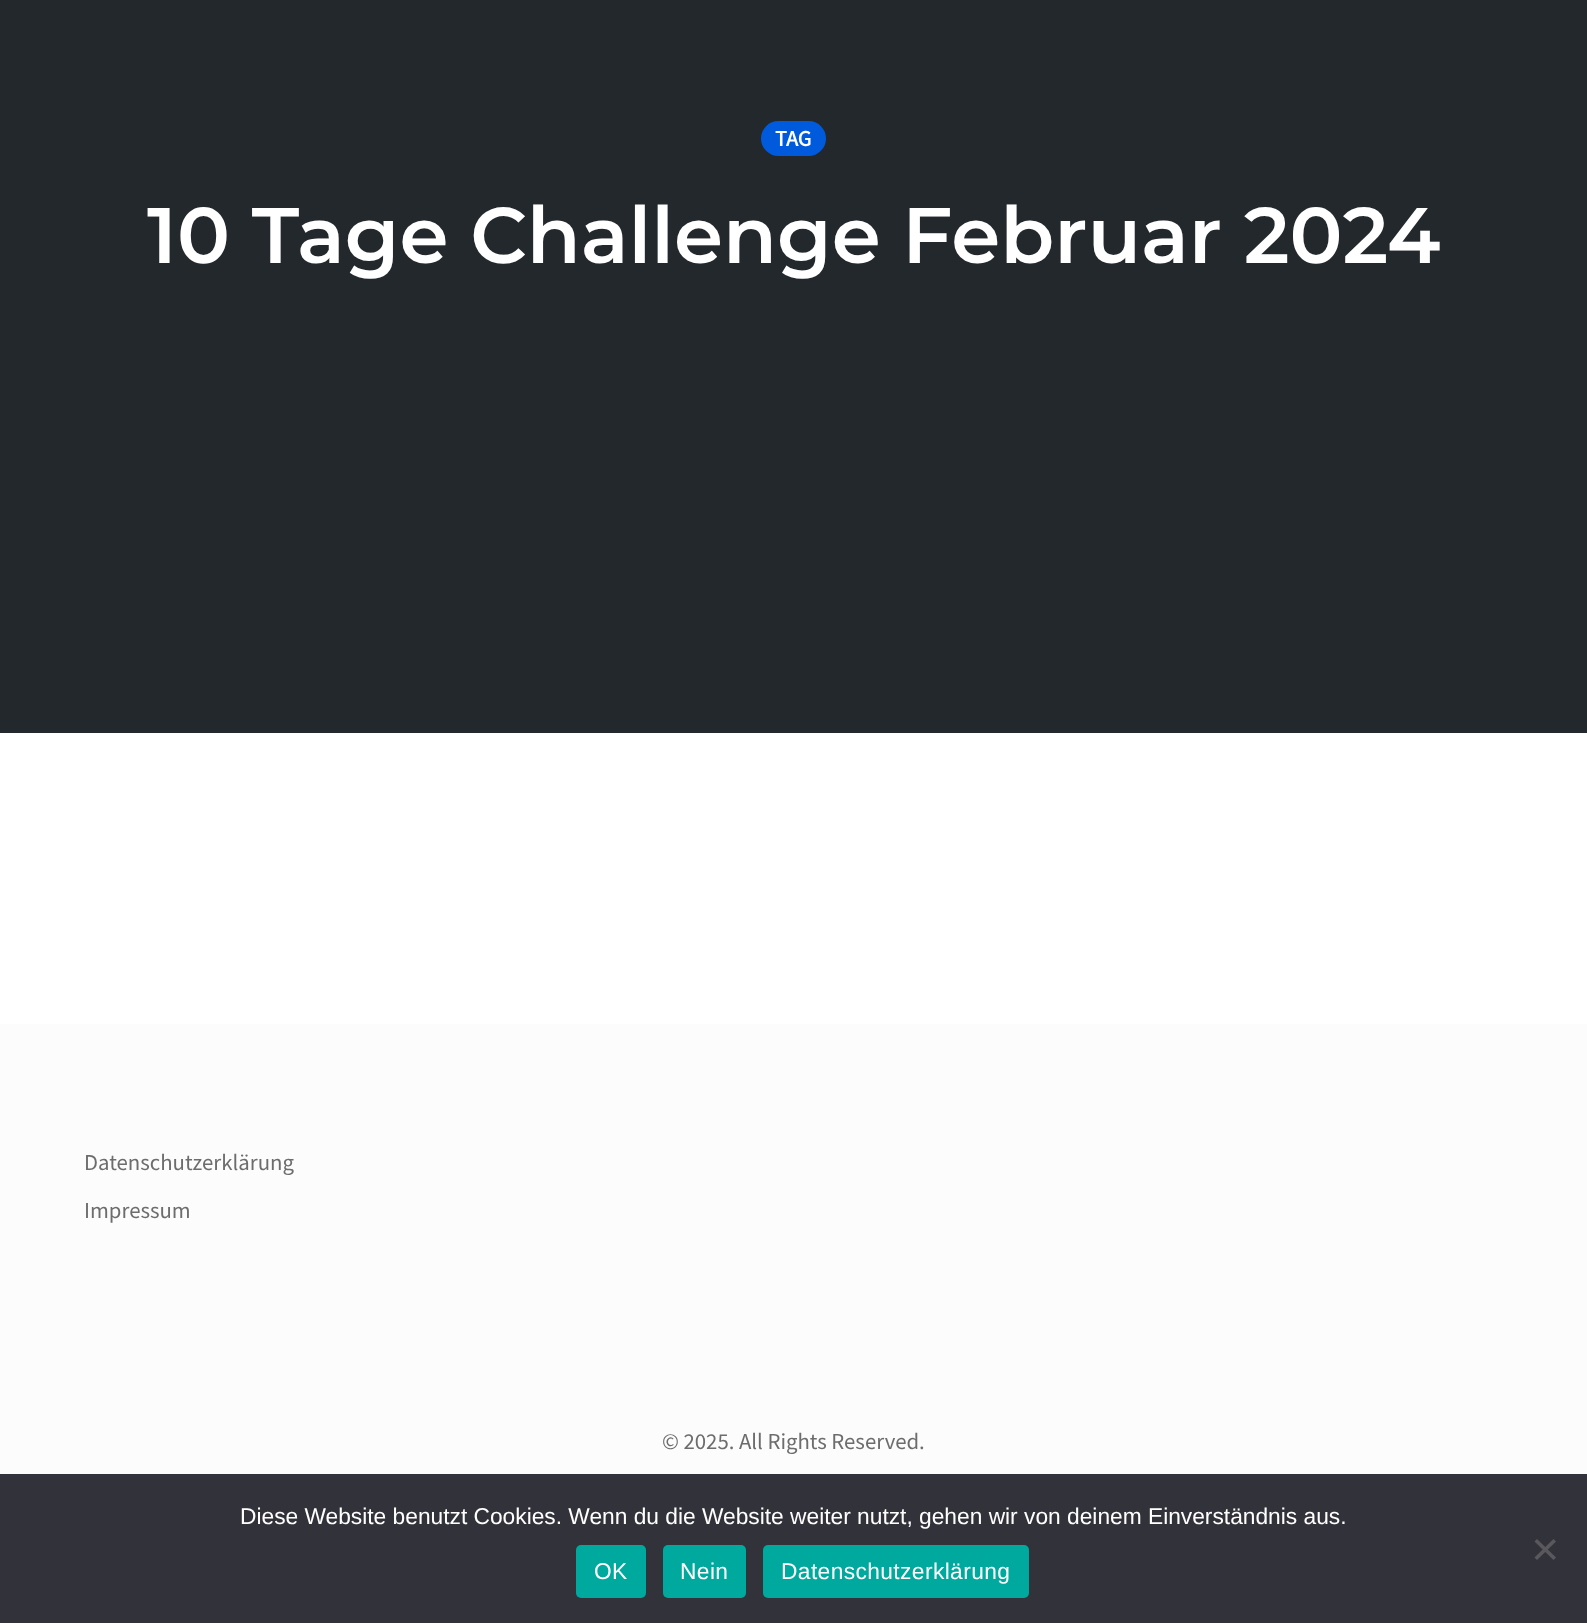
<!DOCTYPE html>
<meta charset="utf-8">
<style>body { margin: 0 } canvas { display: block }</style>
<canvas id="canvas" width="1587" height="1623"></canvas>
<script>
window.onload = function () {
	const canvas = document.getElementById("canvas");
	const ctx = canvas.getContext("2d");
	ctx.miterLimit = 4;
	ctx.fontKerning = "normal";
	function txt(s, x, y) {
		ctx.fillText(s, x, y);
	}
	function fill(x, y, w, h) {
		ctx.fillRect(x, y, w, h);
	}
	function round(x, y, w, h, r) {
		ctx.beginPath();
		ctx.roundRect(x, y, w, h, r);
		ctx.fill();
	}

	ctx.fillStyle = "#FFFFFF";
	fill(0, 0, 1587, 1623);
	ctx.fillStyle = "#23282D";
	fill(0, 0, 1587, 733);
	ctx.fillStyle = "#005BDC";
	round(761, 121, 65, 35, 17.5);
	ctx.fillStyle = "#FCFCFC";
	fill(0, 1024, 1587, 450);
	ctx.fillStyle = "#32323A";
	fill(0, 1474, 1587, 149);
	ctx.fillStyle = "#59595D";
	ctx.beginPath();
	ctx.moveTo(1553.5, 1539);
	ctx.lineTo(1556, 1541.5);
	ctx.lineTo(1537, 1560);
	ctx.lineTo(1534.5, 1557.5);
	ctx.closePath();
	ctx.fill();
	ctx.beginPath();
	ctx.moveTo(1534.5, 1541.5);
	ctx.lineTo(1537, 1539);
	ctx.lineTo(1556, 1557.5);
	ctx.lineTo(1553.5, 1560);
	ctx.closePath();
	ctx.fill();
	ctx.fillStyle = "#00A99D";
	round(576, 1545, 70, 53, 5);
	round(663, 1545, 83, 53, 5);
	round(763, 1545, 266, 53, 5);
	ctx.font = "bold 22px Source Sans Pro";
	ctx.fillStyle = "#FFFFFF";
	txt("TAG", 775, 146);
	ctx.font = "600 78.75px Montserrat";
	txt("10 Tage Challenge Februar 2024", 147, 263);
	ctx.font = "22.75px Source Sans Pro";
	ctx.fillStyle = "#6D6D6D";
	txt("Datenschutzerklärung", 84, 1170);
	txt("Impressum", 84, 1218);
	txt("© 2025. All Rights Reserved.", 662, 1449);
	ctx.font = "22.75px Liberation Sans";
	ctx.fillStyle = "#FFFFFF";
	txt("Diese Website benutzt Cookies. Wenn du die Website weiter nutzt, gehen wir von deinem Einverständnis aus.", 240, 1524);
	ctx.letterSpacing = "0.4px";
	txt("OK", 594, 1579);
	txt("Nein", 680, 1579);
	txt("Datenschutzerklärung", 781, 1579);
};
</script>
